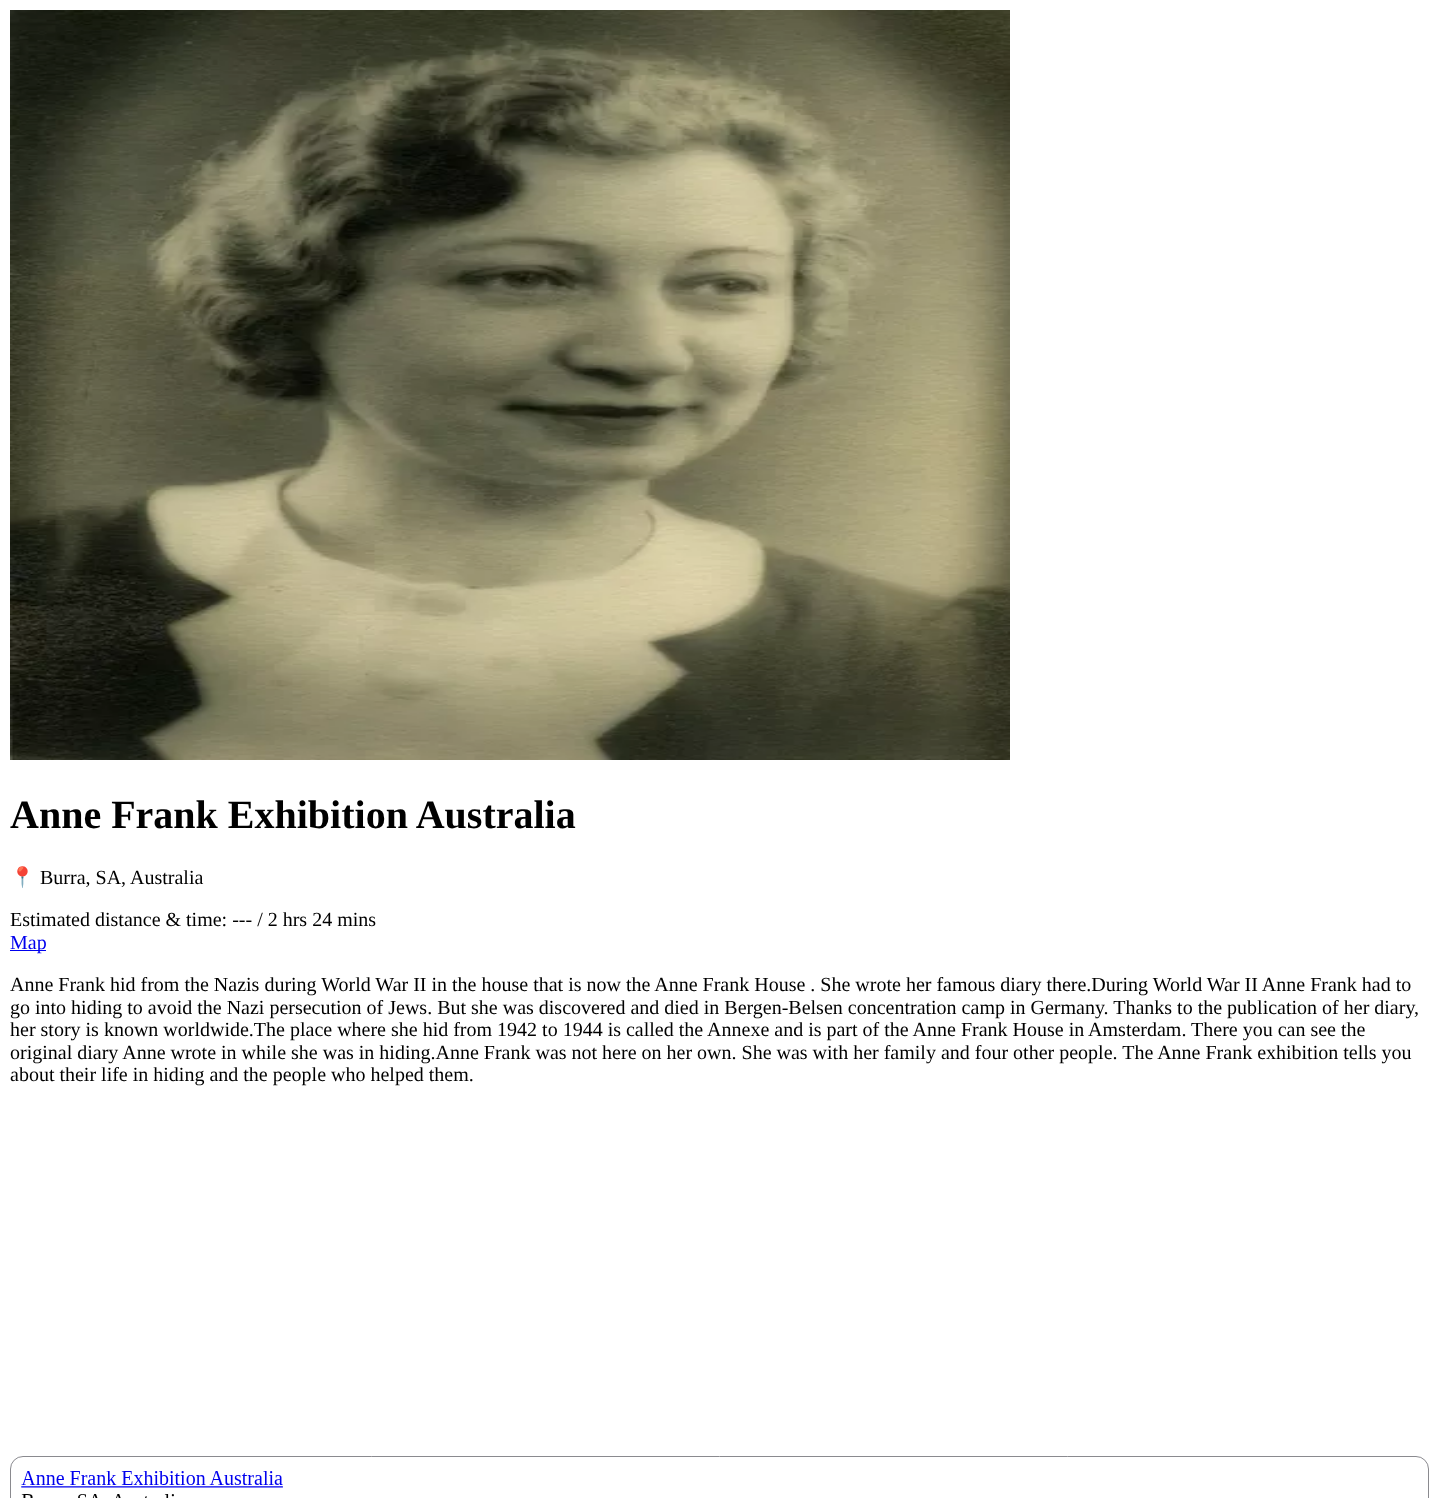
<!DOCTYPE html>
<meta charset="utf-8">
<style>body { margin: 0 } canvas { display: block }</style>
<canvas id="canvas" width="1436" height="1498"></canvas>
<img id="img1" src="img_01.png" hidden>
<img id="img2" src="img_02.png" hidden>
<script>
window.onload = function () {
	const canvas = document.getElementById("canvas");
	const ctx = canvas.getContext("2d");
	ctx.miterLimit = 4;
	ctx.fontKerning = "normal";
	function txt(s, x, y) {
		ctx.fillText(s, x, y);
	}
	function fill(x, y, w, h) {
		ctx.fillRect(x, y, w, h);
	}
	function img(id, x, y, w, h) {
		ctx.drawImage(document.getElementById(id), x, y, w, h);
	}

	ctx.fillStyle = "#FFFFFF";
	fill(0, 0, 1436, 1498);
	img("img1", 10, 10, 1000, 750);
	ctx.fillStyle = "#0000EE";
	fill(10, 950, 36, 1);
	ctx.beginPath();
	ctx.roundRect(10.5, 1456.5, 1418, 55, 12.5);
	ctx.strokeStyle = "#8A8A8F";
	ctx.stroke();
	img("img2", 21, 1471, 262, 27);
	ctx.font = "bold 40px Liberation Serif";
	ctx.fillStyle = "#000000";
	txt("Anne Frank Exhibition Australia", 10, 828);
	ctx.font = "20px Noto Color Emoji";
	txt("📍", 10, 884);
	ctx.font = "20px Liberation Serif";
	txt("Burra, SA, Australia", 40, 884);
	txt("Estimated distance & time: --- / 2 hrs 24 mins", 10, 926);
	ctx.fillStyle = "#0000EE";
	txt("Map", 10, 949);
	ctx.fillStyle = "#000000";
	txt("Anne Frank hid from the Nazis during World War II in the house that is now the Anne Frank House . She wrote her famous diary there.During World War II Anne Frank had to", 10, 991);
	txt("go into hiding to avoid the Nazi persecution of Jews. But she was discovered and died in Bergen-Belsen concentration camp in Germany. Thanks to the publication of her diary,", 10, 1014);
	txt("her story is known worldwide.The place where she hid from 1942 to 1944 is called the Annexe and is part of the Anne Frank House in Amsterdam. There you can see the", 10, 1036);
	txt("original diary Anne wrote in while she was in hiding.Anne Frank was not here on her own. She was with her family and four other people. The Anne Frank exhibition tells you", 10, 1059);
	txt("about their life in hiding and the people who helped them.", 10, 1081);
};
</script>
